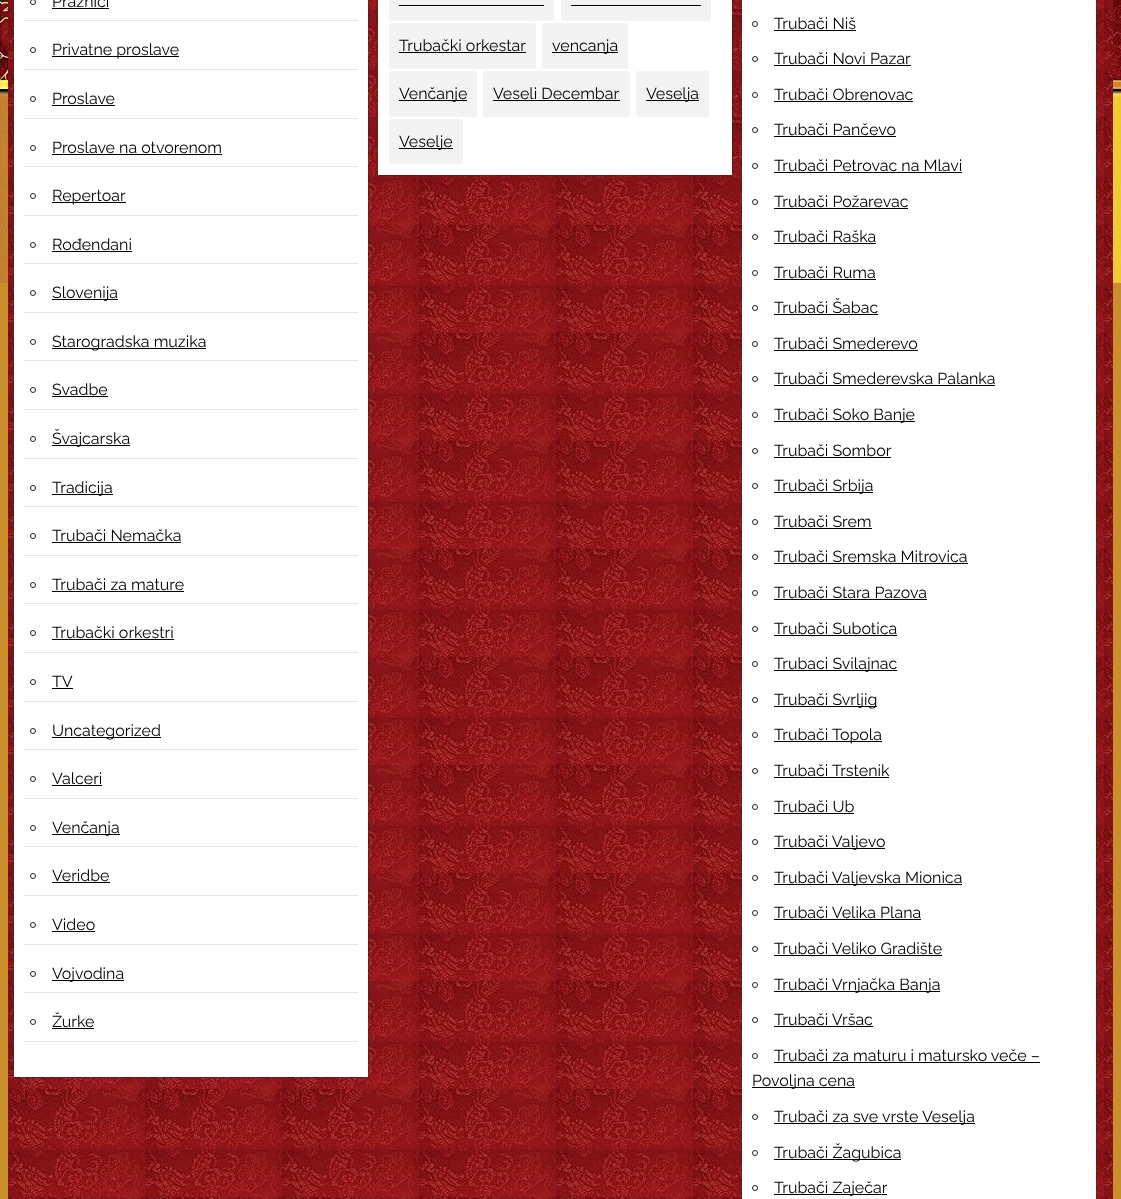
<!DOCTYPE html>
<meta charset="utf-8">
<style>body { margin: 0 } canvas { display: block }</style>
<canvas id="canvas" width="1121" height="1199"></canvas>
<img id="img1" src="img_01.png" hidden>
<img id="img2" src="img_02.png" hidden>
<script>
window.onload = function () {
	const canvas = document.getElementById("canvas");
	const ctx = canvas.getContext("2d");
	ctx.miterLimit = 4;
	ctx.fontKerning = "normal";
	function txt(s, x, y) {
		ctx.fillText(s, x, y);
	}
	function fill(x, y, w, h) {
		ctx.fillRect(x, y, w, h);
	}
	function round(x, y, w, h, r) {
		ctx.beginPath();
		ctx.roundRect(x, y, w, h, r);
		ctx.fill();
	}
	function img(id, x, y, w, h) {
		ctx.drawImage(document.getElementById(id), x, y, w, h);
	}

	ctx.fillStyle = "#CA8E2C";
	fill(0, 0, 1121, 1199);
	img("img1", 0, 0, 1121, 283);
	img("img2", 8, 0, 1105, 1199);
	ctx.fillStyle = "#222222";
	ctx.filter = "blur(1px)";
	ctx.beginPath();
	ctx.rect(14, -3, 354, 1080);
	ctx.fill();
	ctx.filter = "none";
	ctx.fillStyle = "#FFFFFF";
	fill(14, 0, 354, 1077);
	ctx.fillStyle = "#E6E6E6";
	fill(24, 20, 334, 1);
	ctx.beginPath();
	ctx.arc(33, 2, 2.5, 0, Math.PI * 2);
	ctx.strokeStyle = "#222222";
	ctx.stroke();
	ctx.fillStyle = "#000000";
	fill(52, 8, 57, 1);
	ctx.fillStyle = "#E6E6E6";
	fill(24, 69, 334, 1);
	ctx.beginPath();
	ctx.arc(33, 50, 2.5, 0, Math.PI * 2);
	ctx.stroke();
	ctx.fillStyle = "#000000";
	fill(52, 56, 127, 1);
	ctx.fillStyle = "#E6E6E6";
	fill(24, 118, 334, 1);
	ctx.beginPath();
	ctx.arc(33, 99, 2.5, 0, Math.PI * 2);
	ctx.stroke();
	ctx.fillStyle = "#000000";
	fill(52, 105, 63, 1);
	ctx.fillStyle = "#E6E6E6";
	fill(24, 166, 334, 1);
	ctx.beginPath();
	ctx.arc(33, 148, 2.5, 0, Math.PI * 2);
	ctx.stroke();
	ctx.fillStyle = "#000000";
	fill(52, 154, 170, 1);
	ctx.fillStyle = "#E6E6E6";
	fill(24, 215, 334, 1);
	ctx.beginPath();
	ctx.arc(33, 196, 2.5, 0, Math.PI * 2);
	ctx.stroke();
	ctx.fillStyle = "#000000";
	fill(52, 202, 74, 1);
	ctx.fillStyle = "#E6E6E6";
	fill(24, 263, 334, 1);
	ctx.beginPath();
	ctx.arc(33, 245, 2.5, 0, Math.PI * 2);
	ctx.stroke();
	ctx.fillStyle = "#000000";
	fill(52, 251, 80, 1);
	ctx.fillStyle = "#E6E6E6";
	fill(24, 312, 334, 1);
	ctx.beginPath();
	ctx.arc(33, 293, 2.5, 0, Math.PI * 2);
	ctx.stroke();
	ctx.fillStyle = "#000000";
	fill(52, 299, 66, 1);
	ctx.fillStyle = "#E6E6E6";
	fill(24, 360, 334, 1);
	ctx.beginPath();
	ctx.arc(33, 342, 2.5, 0, Math.PI * 2);
	ctx.stroke();
	ctx.fillStyle = "#000000";
	fill(52, 348, 154, 1);
	ctx.fillStyle = "#E6E6E6";
	fill(24, 409, 334, 1);
	ctx.beginPath();
	ctx.arc(33, 390, 2.5, 0, Math.PI * 2);
	ctx.stroke();
	ctx.fillStyle = "#000000";
	fill(52, 396, 56, 1);
	ctx.fillStyle = "#E6E6E6";
	fill(24, 458, 334, 1);
	ctx.beginPath();
	ctx.arc(33, 439, 2.5, 0, Math.PI * 2);
	ctx.stroke();
	ctx.fillStyle = "#000000";
	fill(52, 445, 78, 1);
	ctx.fillStyle = "#E6E6E6";
	fill(24, 506, 334, 1);
	ctx.beginPath();
	ctx.arc(33, 488, 2.5, 0, Math.PI * 2);
	ctx.stroke();
	ctx.fillStyle = "#000000";
	fill(52, 494, 61, 1);
	ctx.fillStyle = "#E6E6E6";
	fill(24, 555, 334, 1);
	ctx.beginPath();
	ctx.arc(33, 536, 2.5, 0, Math.PI * 2);
	ctx.stroke();
	ctx.fillStyle = "#000000";
	fill(52, 542, 129, 1);
	ctx.fillStyle = "#E6E6E6";
	fill(24, 603, 334, 1);
	ctx.beginPath();
	ctx.arc(33, 585, 2.5, 0, Math.PI * 2);
	ctx.stroke();
	ctx.fillStyle = "#000000";
	fill(52, 591, 132, 1);
	ctx.fillStyle = "#E6E6E6";
	fill(24, 652, 334, 1);
	ctx.beginPath();
	ctx.arc(33, 633, 2.5, 0, Math.PI * 2);
	ctx.stroke();
	ctx.fillStyle = "#000000";
	fill(52, 639, 122, 1);
	ctx.fillStyle = "#E6E6E6";
	fill(24, 701, 334, 1);
	ctx.beginPath();
	ctx.arc(33, 682, 2.5, 0, Math.PI * 2);
	ctx.stroke();
	ctx.fillStyle = "#000000";
	fill(52, 688, 21, 1);
	ctx.fillStyle = "#E6E6E6";
	fill(24, 749, 334, 1);
	ctx.beginPath();
	ctx.arc(33, 731, 2.5, 0, Math.PI * 2);
	ctx.stroke();
	ctx.fillStyle = "#000000";
	fill(52, 737, 109, 1);
	ctx.fillStyle = "#E6E6E6";
	fill(24, 798, 334, 1);
	ctx.beginPath();
	ctx.arc(33, 779, 2.5, 0, Math.PI * 2);
	ctx.stroke();
	ctx.fillStyle = "#000000";
	fill(52, 785, 50, 1);
	ctx.fillStyle = "#E6E6E6";
	fill(24, 846, 334, 1);
	ctx.beginPath();
	ctx.arc(33, 828, 2.5, 0, Math.PI * 2);
	ctx.stroke();
	ctx.fillStyle = "#000000";
	fill(52, 834, 68, 1);
	ctx.fillStyle = "#E6E6E6";
	fill(24, 895, 334, 1);
	ctx.beginPath();
	ctx.arc(33, 876, 2.5, 0, Math.PI * 2);
	ctx.stroke();
	ctx.fillStyle = "#000000";
	fill(52, 882, 58, 1);
	ctx.fillStyle = "#E6E6E6";
	fill(24, 944, 334, 1);
	ctx.beginPath();
	ctx.arc(33, 925, 2.5, 0, Math.PI * 2);
	ctx.stroke();
	ctx.fillStyle = "#000000";
	fill(52, 931, 43, 1);
	ctx.fillStyle = "#E6E6E6";
	fill(24, 992, 334, 1);
	ctx.beginPath();
	ctx.arc(33, 974, 2.5, 0, Math.PI * 2);
	ctx.stroke();
	ctx.fillStyle = "#000000";
	fill(52, 980, 72, 1);
	ctx.fillStyle = "#E6E6E6";
	fill(24, 1041, 334, 1);
	ctx.beginPath();
	ctx.arc(33, 1022, 2.5, 0, Math.PI * 2);
	ctx.stroke();
	ctx.fillStyle = "#000000";
	fill(52, 1028, 42, 1);
	ctx.fillStyle = "#222222";
	ctx.filter = "blur(1px)";
	ctx.beginPath();
	ctx.rect(378, -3, 354, 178);
	ctx.fill();
	ctx.filter = "none";
	ctx.fillStyle = "#FFFFFF";
	fill(378, 0, 354, 175);
	ctx.fillStyle = "#F3F3F3";
	round(389, -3, 165, 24, 3);
	ctx.fillStyle = "#000000";
	fill(399, 5, 145, 1);
	ctx.fillStyle = "#F3F3F3";
	round(561, -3, 150, 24, 3);
	ctx.fillStyle = "#000000";
	fill(571, 5, 130, 1);
	ctx.fillStyle = "#F3F3F3";
	round(389, 23, 147, 46, 3);
	ctx.fillStyle = "#000000";
	fill(399, 52, 127, 1);
	ctx.fillStyle = "#F3F3F3";
	round(542, 23, 86, 46, 3);
	ctx.fillStyle = "#000000";
	fill(552, 52, 66, 1);
	ctx.fillStyle = "#F3F3F3";
	round(389, 71, 88, 46, 3);
	ctx.fillStyle = "#000000";
	fill(399, 100, 68, 1);
	ctx.fillStyle = "#F3F3F3";
	round(483, 71, 147, 46, 3);
	ctx.fillStyle = "#000000";
	fill(493, 100, 127, 1);
	ctx.fillStyle = "#F3F3F3";
	round(636, 71, 73, 46, 3);
	ctx.fillStyle = "#000000";
	fill(646, 100, 53, 1);
	ctx.fillStyle = "#F3F3F3";
	round(389, 119, 74, 45, 3);
	ctx.fillStyle = "#000000";
	fill(399, 148, 54, 1);
	ctx.fillStyle = "#222222";
	ctx.filter = "blur(1px)";
	ctx.beginPath();
	ctx.rect(742, -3, 354, 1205);
	ctx.fill();
	ctx.filter = "none";
	ctx.fillStyle = "#FFFFFF";
	fill(742, 0, 354, 1199);
	ctx.beginPath();
	ctx.arc(755, 24, 2.5, 0, Math.PI * 2);
	ctx.stroke();
	ctx.fillStyle = "#000000";
	fill(774, 30, 82, 1);
	ctx.beginPath();
	ctx.arc(755, 59, 2.5, 0, Math.PI * 2);
	ctx.stroke();
	fill(774, 65, 137, 1);
	ctx.beginPath();
	ctx.arc(755, 95, 2.5, 0, Math.PI * 2);
	ctx.stroke();
	fill(774, 101, 139, 1);
	ctx.beginPath();
	ctx.arc(755, 130, 2.5, 0, Math.PI * 2);
	ctx.stroke();
	fill(774, 136, 122, 1);
	ctx.beginPath();
	ctx.arc(755, 166, 2.5, 0, Math.PI * 2);
	ctx.stroke();
	fill(774, 172, 188, 1);
	ctx.beginPath();
	ctx.arc(755, 202, 2.5, 0, Math.PI * 2);
	ctx.stroke();
	fill(774, 208, 134, 1);
	ctx.beginPath();
	ctx.arc(755, 237, 2.5, 0, Math.PI * 2);
	ctx.stroke();
	fill(774, 243, 102, 1);
	ctx.beginPath();
	ctx.arc(755, 273, 2.5, 0, Math.PI * 2);
	ctx.stroke();
	fill(774, 279, 102, 1);
	ctx.beginPath();
	ctx.arc(755, 308, 2.5, 0, Math.PI * 2);
	ctx.stroke();
	fill(774, 314, 104, 1);
	ctx.beginPath();
	ctx.arc(755, 344, 2.5, 0, Math.PI * 2);
	ctx.stroke();
	fill(774, 350, 144, 1);
	ctx.beginPath();
	ctx.arc(755, 379, 2.5, 0, Math.PI * 2);
	ctx.stroke();
	fill(774, 385, 221, 1);
	ctx.beginPath();
	ctx.arc(755, 415, 2.5, 0, Math.PI * 2);
	ctx.stroke();
	fill(774, 421, 141, 1);
	ctx.beginPath();
	ctx.arc(755, 451, 2.5, 0, Math.PI * 2);
	ctx.stroke();
	fill(774, 457, 117, 1);
	ctx.beginPath();
	ctx.arc(755, 486, 2.5, 0, Math.PI * 2);
	ctx.stroke();
	fill(774, 492, 99, 1);
	ctx.beginPath();
	ctx.arc(755, 522, 2.5, 0, Math.PI * 2);
	ctx.stroke();
	fill(774, 528, 98, 1);
	ctx.beginPath();
	ctx.arc(755, 557, 2.5, 0, Math.PI * 2);
	ctx.stroke();
	fill(774, 563, 194, 1);
	ctx.beginPath();
	ctx.arc(755, 593, 2.5, 0, Math.PI * 2);
	ctx.stroke();
	fill(774, 599, 153, 1);
	ctx.beginPath();
	ctx.arc(755, 629, 2.5, 0, Math.PI * 2);
	ctx.stroke();
	fill(774, 635, 123, 1);
	ctx.beginPath();
	ctx.arc(755, 664, 2.5, 0, Math.PI * 2);
	ctx.stroke();
	fill(774, 670, 123, 1);
	ctx.beginPath();
	ctx.arc(755, 700, 2.5, 0, Math.PI * 2);
	ctx.stroke();
	fill(774, 706, 103, 1);
	ctx.beginPath();
	ctx.arc(755, 735, 2.5, 0, Math.PI * 2);
	ctx.stroke();
	fill(774, 741, 108, 1);
	ctx.beginPath();
	ctx.arc(755, 771, 2.5, 0, Math.PI * 2);
	ctx.stroke();
	fill(774, 777, 115, 1);
	ctx.beginPath();
	ctx.arc(755, 807, 2.5, 0, Math.PI * 2);
	ctx.stroke();
	fill(774, 813, 80, 1);
	ctx.beginPath();
	ctx.arc(755, 842, 2.5, 0, Math.PI * 2);
	ctx.stroke();
	fill(774, 848, 111, 1);
	ctx.beginPath();
	ctx.arc(755, 878, 2.5, 0, Math.PI * 2);
	ctx.stroke();
	fill(774, 884, 188, 1);
	ctx.beginPath();
	ctx.arc(755, 913, 2.5, 0, Math.PI * 2);
	ctx.stroke();
	fill(774, 919, 147, 1);
	ctx.beginPath();
	ctx.arc(755, 949, 2.5, 0, Math.PI * 2);
	ctx.stroke();
	fill(774, 955, 168, 1);
	ctx.beginPath();
	ctx.arc(755, 985, 2.5, 0, Math.PI * 2);
	ctx.stroke();
	fill(774, 991, 166, 1);
	ctx.beginPath();
	ctx.arc(755, 1020, 2.5, 0, Math.PI * 2);
	ctx.stroke();
	fill(774, 1026, 99, 1);
	ctx.beginPath();
	ctx.arc(755, 1056, 2.5, 0, Math.PI * 2);
	ctx.stroke();
	fill(774, 1062, 266, 1);
	fill(752, 1087, 103, 1);
	ctx.beginPath();
	ctx.arc(755, 1117, 2.5, 0, Math.PI * 2);
	ctx.stroke();
	fill(774, 1123, 201, 1);
	ctx.beginPath();
	ctx.arc(755, 1153, 2.5, 0, Math.PI * 2);
	ctx.stroke();
	fill(774, 1159, 127, 1);
	ctx.beginPath();
	ctx.arc(755, 1188, 2.5, 0, Math.PI * 2);
	ctx.stroke();
	fill(774, 1194, 113, 1);
	ctx.font = "16px Raleway";
	txt("Praznici", 52, 7);
	txt("Privatne proslave", 52, 55);
	txt("Proslave", 52, 104);
	txt("Proslave na otvorenom", 52, 153);
	txt("Repertoar", 52, 201);
	txt("Rođendani", 52, 250);
	txt("Slovenija", 52, 298);
	txt("Starogradska muzika", 52, 347);
	txt("Svadbe", 52, 395);
	txt("Švajcarska", 52, 444);
	txt("Tradicija", 52, 493);
	txt("Trubači Nemačka", 52, 541);
	txt("Trubači za mature", 52, 590);
	txt("Trubački orkestri", 52, 638);
	txt("TV", 52, 687);
	txt("Uncategorized", 52, 736);
	txt("Valceri", 52, 784);
	txt("Venčanja", 52, 833);
	txt("Veridbe", 52, 881);
	txt("Video", 52, 930);
	txt("Vojvodina", 52, 979);
	txt("Žurke", 52, 1027);
	txt("Trubački orkestar", 399, 51);
	txt("vencanja", 552, 51);
	txt("Venčanje", 399, 99);
	txt("Veseli Decembar", 493, 99);
	txt("Veselja", 646, 99);
	txt("Veselje", 399, 147);
	txt("Trubači Niš", 774, 29);
	txt("Trubači Novi Pazar", 774, 64);
	txt("Trubači Obrenovac", 774, 100);
	txt("Trubači Pančevo", 774, 135);
	txt("Trubači Petrovac na Mlavi", 774, 171);
	txt("Trubači Požarevac", 774, 207);
	txt("Trubači Raška", 774, 242);
	txt("Trubači Ruma", 774, 278);
	txt("Trubači Šabac", 774, 313);
	txt("Trubači Smederevo", 774, 349);
	txt("Trubači Smederevska Palanka", 774, 384);
	txt("Trubači Soko Banje", 774, 420);
	txt("Trubači Sombor", 774, 456);
	txt("Trubači Srbija", 774, 491);
	txt("Trubači Srem", 774, 527);
	txt("Trubači Sremska Mitrovica", 774, 562);
	txt("Trubači Stara Pazova", 774, 598);
	txt("Trubači Subotica", 774, 634);
	txt("Trubaci Svilajnac", 774, 669);
	txt("Trubači Svrljig", 774, 705);
	txt("Trubači Topola", 774, 740);
	txt("Trubači Trstenik", 774, 776);
	txt("Trubači Ub", 774, 812);
	txt("Trubači Valjevo", 774, 847);
	txt("Trubači Valjevska Mionica", 774, 883);
	txt("Trubači Velika Plana", 774, 918);
	txt("Trubači Veliko Gradište", 774, 954);
	txt("Trubači Vrnjačka Banja", 774, 990);
	txt("Trubači Vršac", 774, 1025);
	txt("Trubači za maturu i matursko veče –", 774, 1061);
	txt("Povoljna cena", 752, 1086);
	txt("Trubači za sve vrste Veselja", 774, 1122);
	txt("Trubači Žagubica", 774, 1158);
	txt("Trubači Zaječar", 774, 1193);
};
</script>
